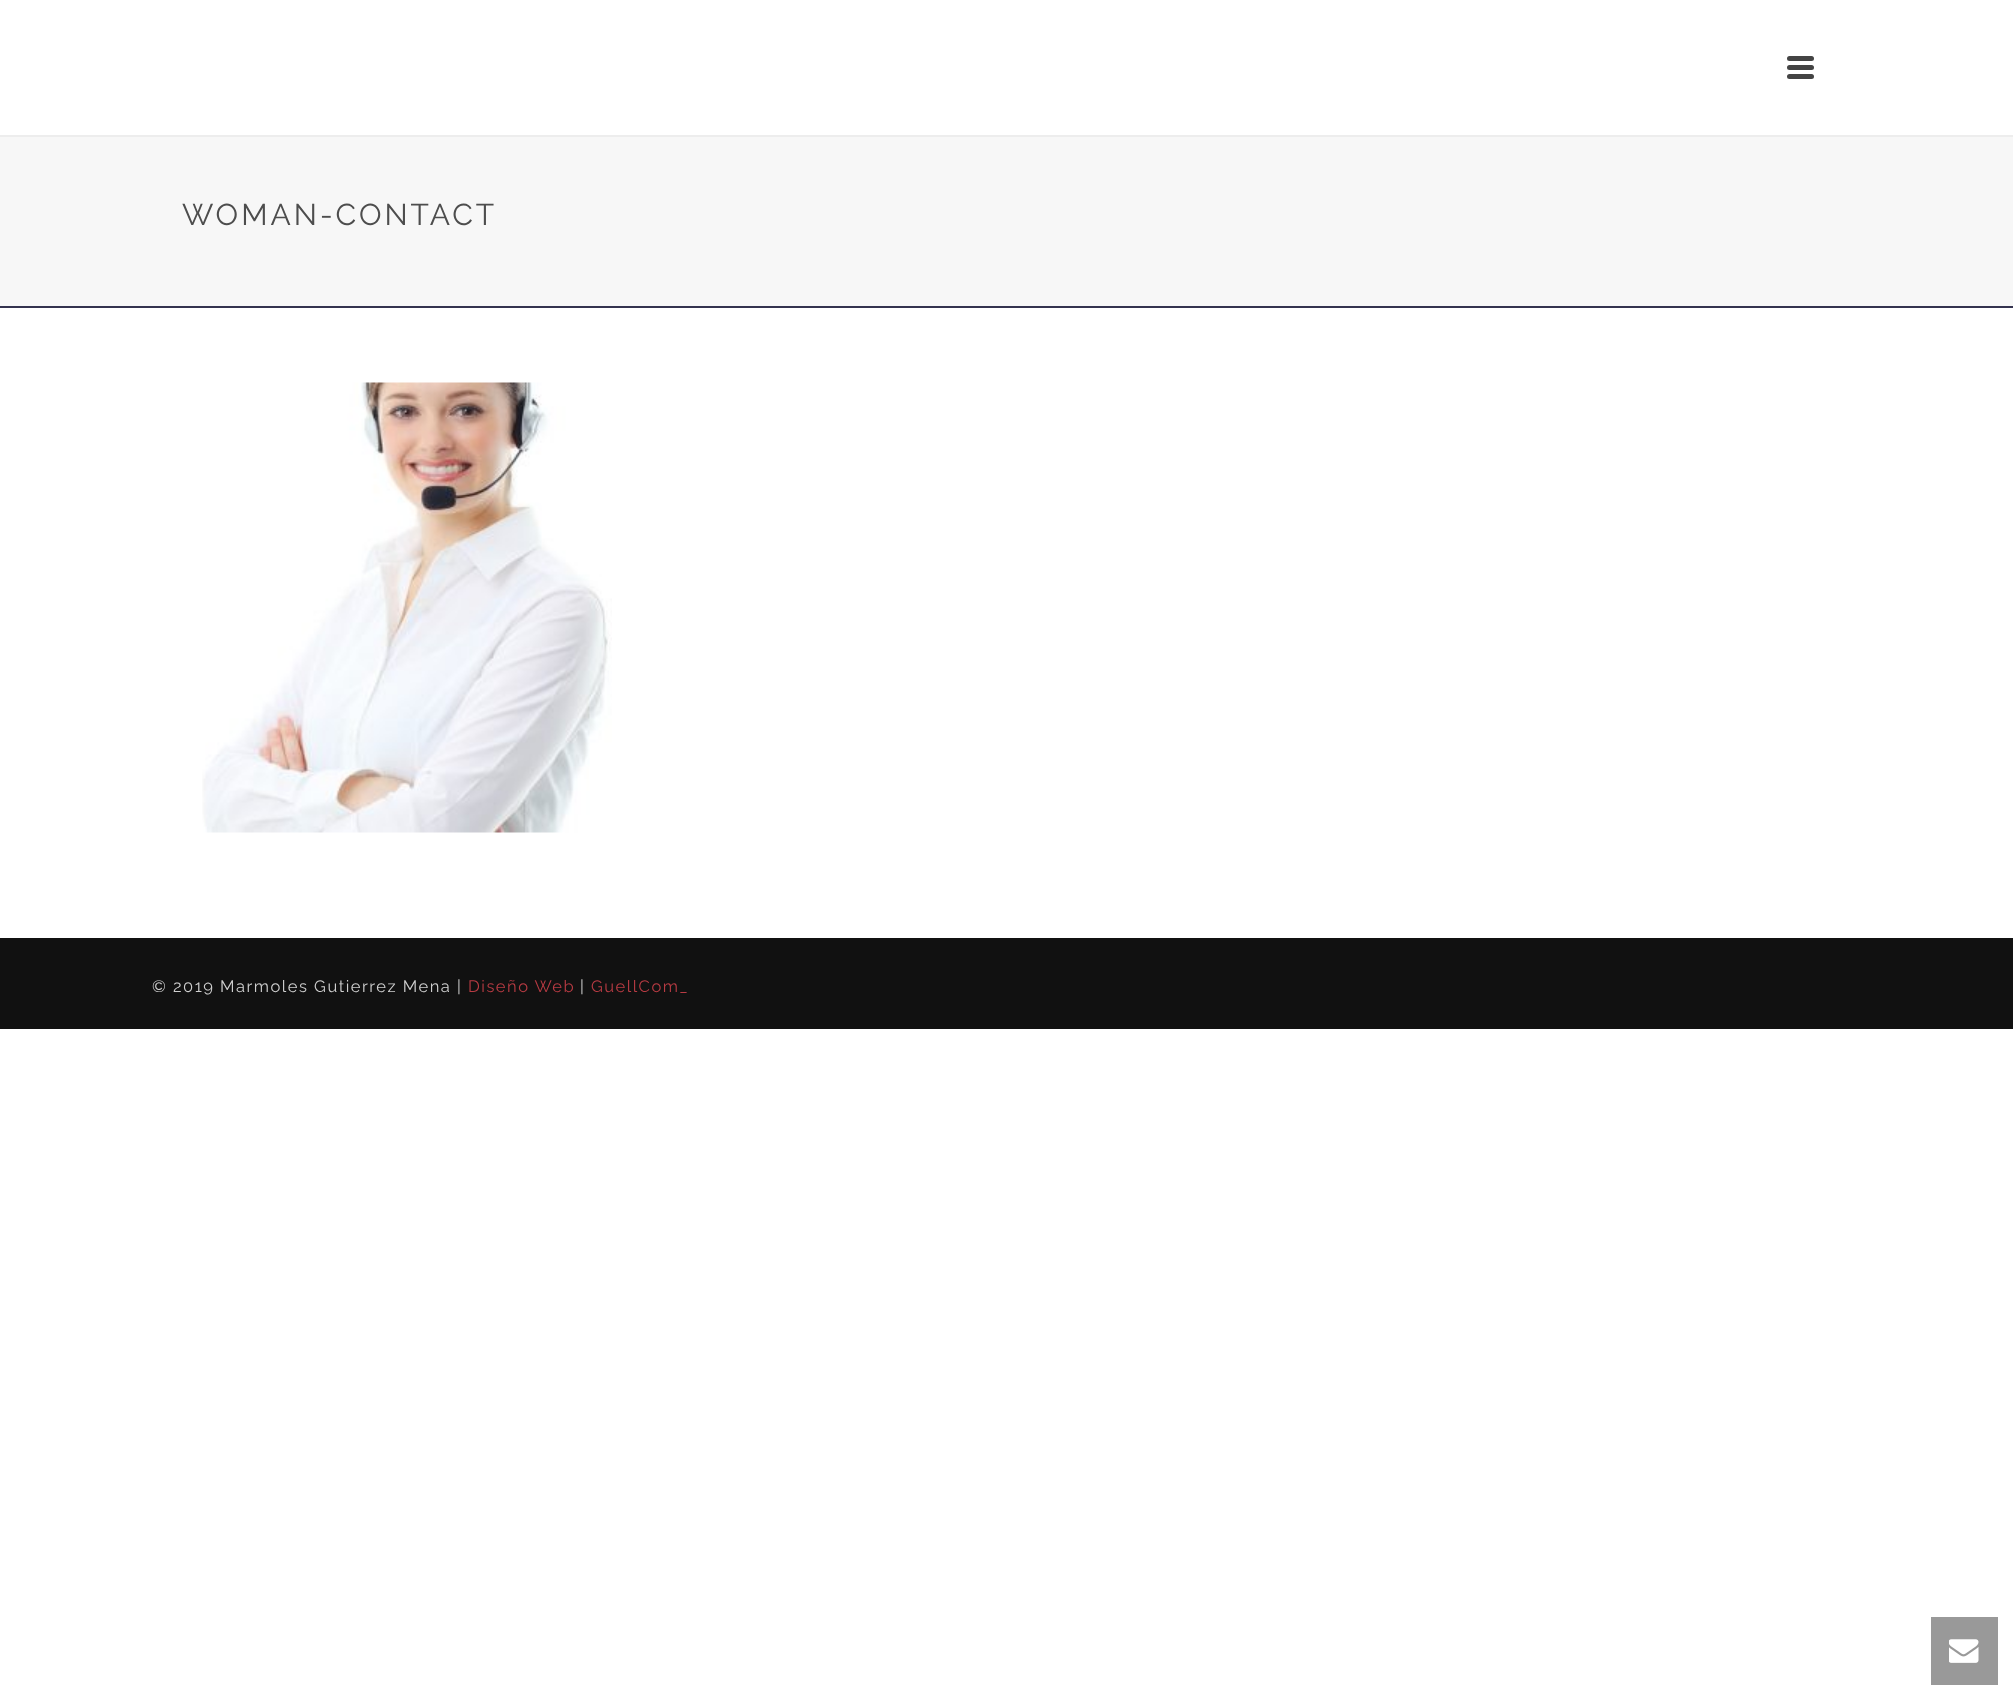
<!DOCTYPE html>
<meta charset="utf-8">
<style>body { margin: 0 } canvas { display: block }</style>
<canvas id="canvas" width="2013" height="1707"></canvas>
<img id="img1" src="img_01.png" hidden>
<img id="img2" src="img_02.png" hidden>
<script>
window.onload = function () {
	const canvas = document.getElementById("canvas");
	const ctx = canvas.getContext("2d");
	ctx.miterLimit = 4;
	ctx.fontKerning = "normal";
	function txt(s, x, y) {
		ctx.fillText(s, x, y);
	}
	function fill(x, y, w, h) {
		ctx.fillRect(x, y, w, h);
	}
	function round(x, y, w, h, r) {
		ctx.beginPath();
		ctx.roundRect(x, y, w, h, r);
		ctx.fill();
	}
	function img(id, x, y, w, h) {
		ctx.drawImage(document.getElementById(id), x, y, w, h);
	}

	ctx.fillStyle = "#FFFFFF";
	fill(0, 0, 2013, 1707);
	ctx.fillStyle = "#F7F7F7";
	fill(0, 137, 2013, 169);
	ctx.fillStyle = "#34334F";
	fill(0, 306, 2013, 2);
	ctx.fillStyle = "#EDEDED";
	fill(0, 135, 2013, 2);
	ctx.fillStyle = "#444444";
	round(1787, 56, 27, 5, 2.5);
	round(1787, 65, 27, 5, 2.5);
	round(1787, 74, 27, 5, 2.5);
	img("img1", 202, 382, 410, 451);
	ctx.fillStyle = "#111111";
	fill(0, 938, 2013, 91);
	ctx.fillStyle = "#999999";
	fill(1931, 1617, 67, 68);
	img("img2", 1949, 1639, 30, 24);
	ctx.letterSpacing = "3px";
	ctx.font = "30px Raleway";
	ctx.fillStyle = "#4D4D4D";
	txt("WOMAN-CONTACT", 182, 225);
	ctx.letterSpacing = "1.5px";
	ctx.font = "16.5px Raleway";
	ctx.fillStyle = "#CFCFCF";
	txt("© 2019 Marmoles Gutierrez Mena |", 152, 992);
	ctx.fillStyle = "#B83B43";
	txt("Diseño Web", 468, 992);
	ctx.fillStyle = "#CFCFCF";
	txt("|", 580, 992);
	ctx.fillStyle = "#B83B43";
	txt("GuellCom_", 591, 992);
};
</script>
